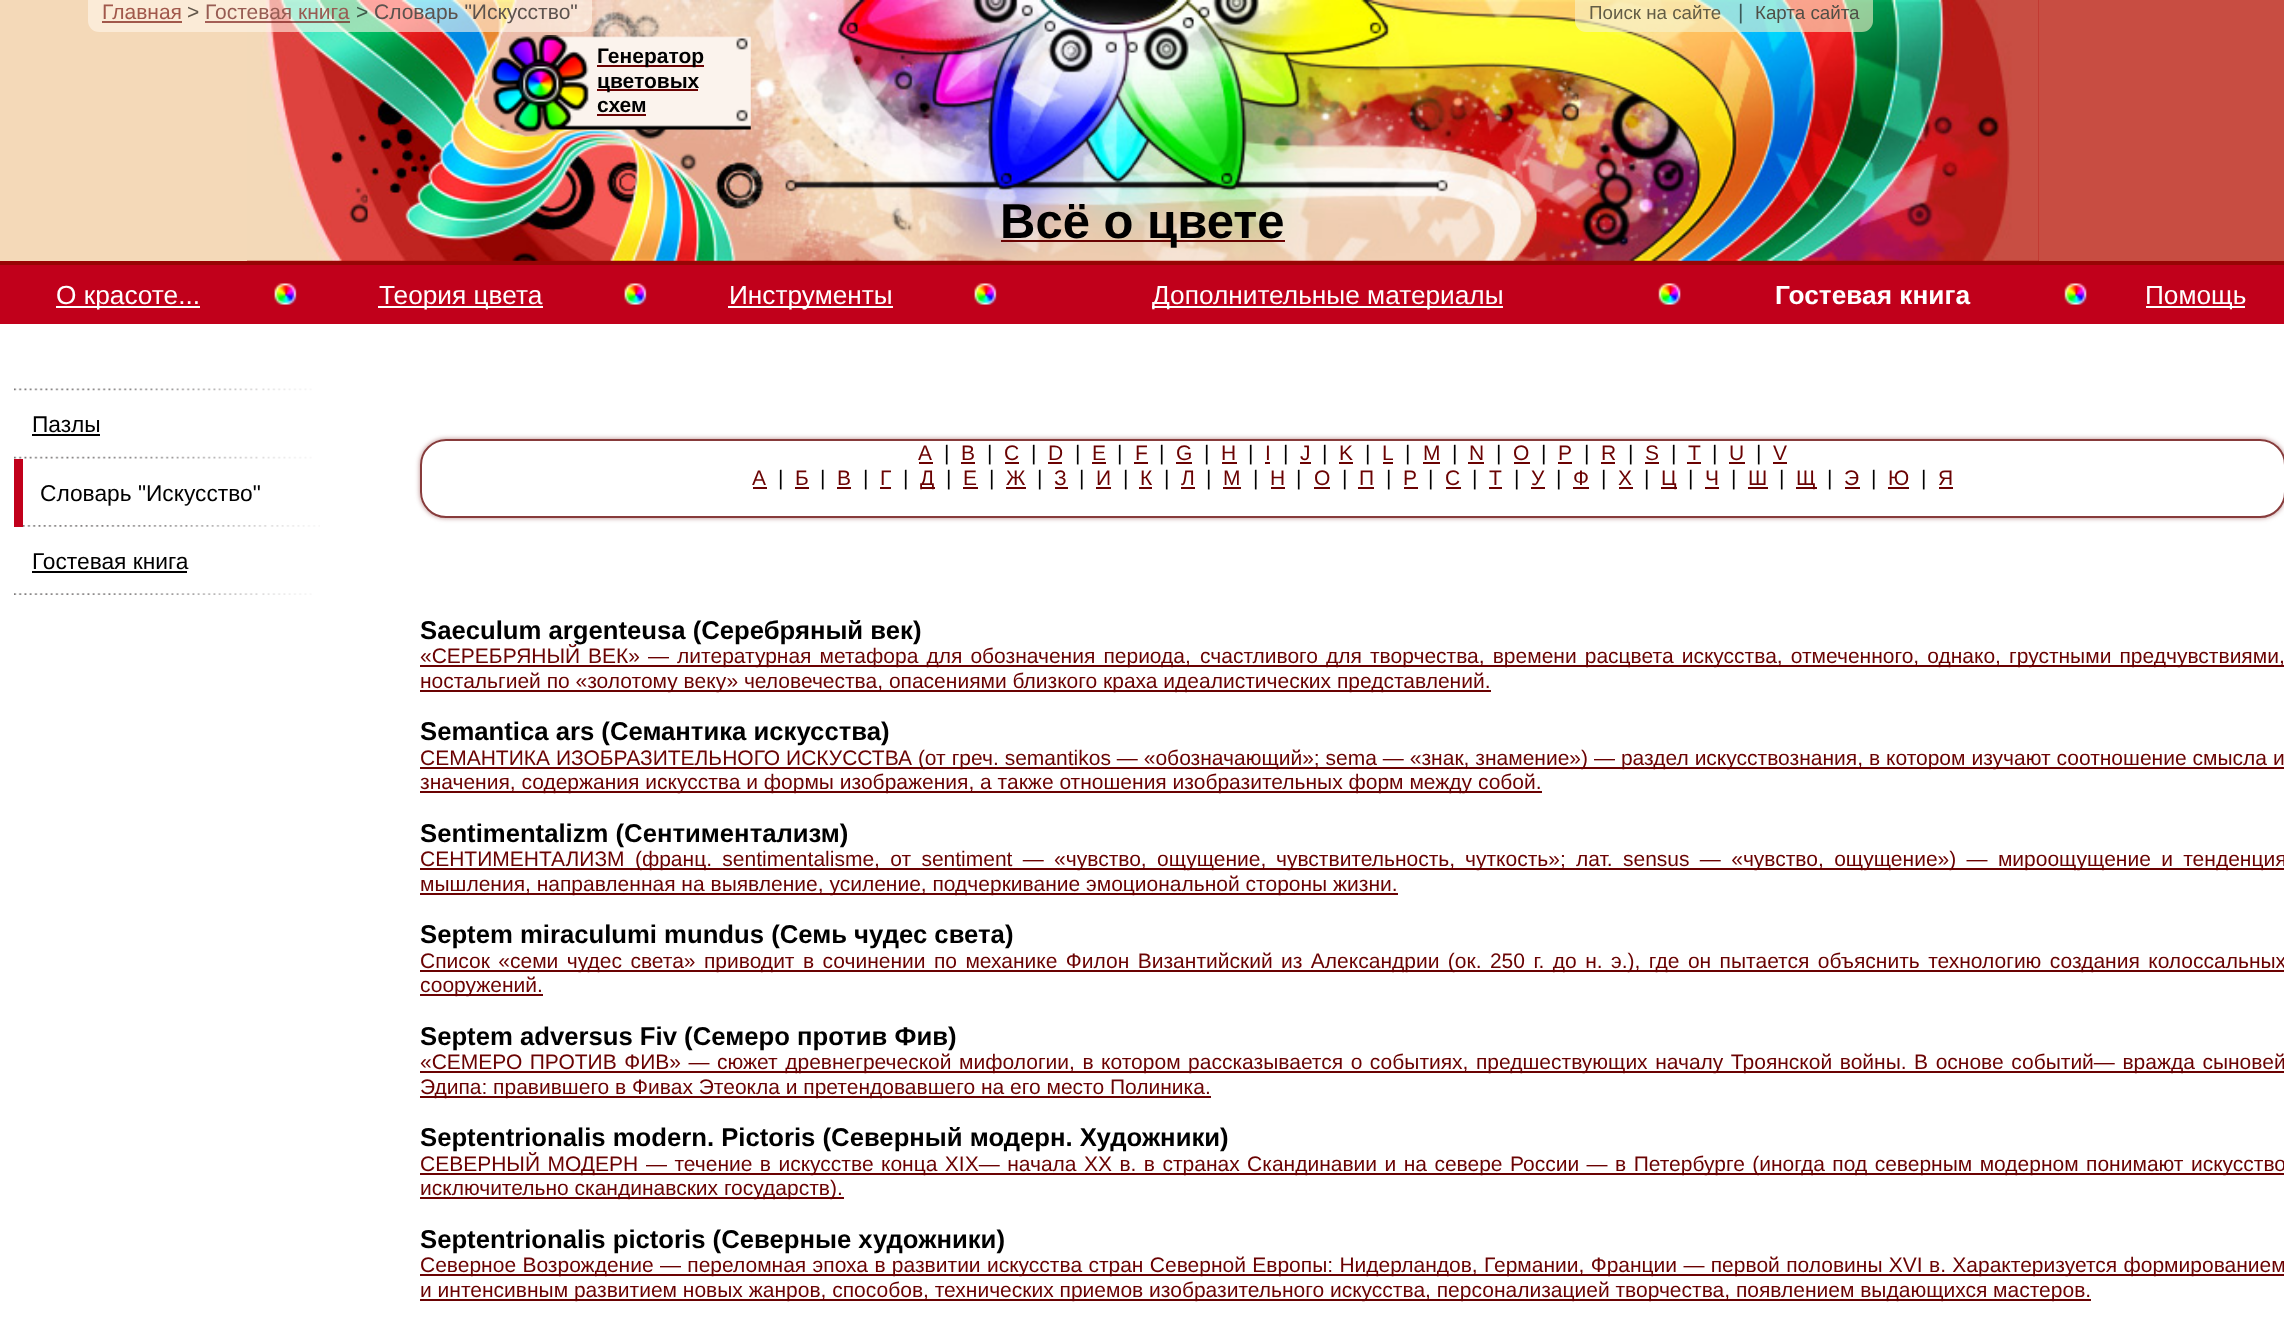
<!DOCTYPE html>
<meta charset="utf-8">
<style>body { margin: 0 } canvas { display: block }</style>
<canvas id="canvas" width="2284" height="1320"></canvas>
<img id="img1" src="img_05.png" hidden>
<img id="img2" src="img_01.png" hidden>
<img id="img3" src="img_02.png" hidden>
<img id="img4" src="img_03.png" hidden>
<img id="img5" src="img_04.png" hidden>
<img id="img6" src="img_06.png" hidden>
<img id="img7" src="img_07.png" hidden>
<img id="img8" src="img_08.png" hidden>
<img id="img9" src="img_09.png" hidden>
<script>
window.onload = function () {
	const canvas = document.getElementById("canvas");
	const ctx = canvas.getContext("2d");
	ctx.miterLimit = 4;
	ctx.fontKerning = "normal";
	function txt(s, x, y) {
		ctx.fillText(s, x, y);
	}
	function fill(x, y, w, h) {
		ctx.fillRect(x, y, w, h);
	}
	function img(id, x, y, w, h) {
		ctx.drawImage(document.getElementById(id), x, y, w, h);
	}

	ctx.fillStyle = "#FFFFFF";
	fill(0, 0, 2284, 1320);
	ctx.fillStyle = "#B00202";
	fill(247, 0, 1792, 261);
	ctx.fillStyle = "#F4D9B8";
	fill(0, 0, 247, 261);
	img("img1", 247, 0, 1792, 261);
	ctx.fillStyle = "rgba(255, 247, 235, 0.6)";
	ctx.beginPath();
	ctx.roundRect(88, 0, 504, 32, [0, 0, 11, 11]);
	ctx.fill();
	ctx.fillStyle = "#A1584B";
	fill(102, 21, 80, 2);
	ctx.fillStyle = "rgba(106, 2, 2, 0.6)";
	fill(205, 21, 145, 2);
	ctx.fillStyle = "rgba(246, 244, 205, 0.6)";
	ctx.beginPath();
	ctx.roundRect(1575, 0, 298, 32, [0, 0, 11, 11]);
	ctx.fill();
	img("img2", 14, 388, 298, 3);
	img("img3", 14, 456, 298, 3);
	ctx.fillStyle = "#000000";
	fill(32, 434, 68, 2);
	img("img4", 23, 525, 297, 2);
	ctx.fillStyle = "#C1001B";
	fill(14, 459, 9, 68);
	img("img5", 14, 593, 298, 2);
	ctx.fillStyle = "#000000";
	fill(32, 571, 155, 2);
	ctx.save();
	ctx.beginPath();
	ctx.moveTo(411, 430);
	ctx.lineTo(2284, 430);
	ctx.lineTo(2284, 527);
	ctx.lineTo(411, 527);
	ctx.closePath();
	ctx.moveTo(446, 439);
	ctx.lineTo(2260, 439);
	ctx.bezierCurveTo(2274.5, 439, 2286, 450.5, 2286, 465);
	ctx.lineTo(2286, 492);
	ctx.bezierCurveTo(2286, 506.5, 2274.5, 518, 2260, 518);
	ctx.lineTo(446, 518);
	ctx.bezierCurveTo(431.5, 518, 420, 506.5, 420, 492);
	ctx.lineTo(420, 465);
	ctx.bezierCurveTo(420, 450.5, 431.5, 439, 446, 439);
	ctx.closePath();
	ctx.clip("evenodd");
	ctx.fillStyle = "#B58989";
	ctx.filter = "blur(2.5px)";
	ctx.beginPath();
	ctx.roundRect(420, 439, 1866, 79, 26);
	ctx.fill();
	ctx.filter = "none";
	ctx.restore();
	ctx.beginPath();
	ctx.roundRect(421, 440, 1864, 77, 25);
	ctx.strokeStyle = "#873B3B";
	ctx.lineWidth = 2;
	ctx.stroke();
	ctx.fillStyle = "#6A0202";
	fill(919, 462, 14, 2);
	fill(961, 462, 14, 2);
	fill(1005, 462, 14, 2);
	fill(1048, 462, 14, 2);
	fill(1092, 462, 14, 2);
	fill(1134, 462, 14, 2);
	fill(1176, 462, 16, 2);
	fill(1222, 462, 15, 2);
	fill(1265, 462, 5, 2);
	fill(1300, 462, 11, 2);
	fill(1339, 462, 14, 2);
	fill(1383, 462, 10, 2);
	fill(1423, 462, 17, 2);
	fill(1468, 462, 16, 2);
	fill(1514, 462, 16, 2);
	fill(1558, 462, 14, 2);
	fill(1601, 462, 14, 2);
	fill(1645, 462, 14, 2);
	fill(1687, 462, 14, 2);
	fill(1729, 462, 16, 2);
	fill(1773, 462, 14, 2);
	fill(753, 487, 14, 2);
	fill(795, 487, 14, 2);
	fill(837, 487, 14, 2);
	fill(880, 487, 11, 2);
	fill(921, 487, 14, 2);
	fill(963, 487, 15, 2);
	fill(1006, 487, 20, 2);
	fill(1055, 487, 13, 2);
	fill(1096, 487, 15, 2);
	fill(1139, 487, 13, 2);
	fill(1181, 487, 14, 2);
	fill(1223, 487, 18, 2);
	fill(1271, 487, 14, 2);
	fill(1314, 487, 16, 2);
	fill(1358, 487, 16, 2);
	fill(1404, 487, 14, 2);
	fill(1446, 487, 15, 2);
	fill(1489, 487, 13, 2);
	fill(1531, 487, 14, 2);
	fill(1573, 487, 16, 2);
	fill(1619, 487, 14, 2);
	fill(1661, 487, 16, 2);
	fill(1705, 487, 14, 2);
	fill(1748, 487, 20, 2);
	fill(1796, 487, 21, 2);
	fill(1845, 487, 15, 2);
	fill(1888, 487, 21, 2);
	fill(1939, 487, 14, 2);
	fill(420, 665, 1864, 2);
	fill(420, 690, 1071, 2);
	fill(420, 767, 1864, 2);
	fill(420, 791, 1122, 2);
	fill(420, 868, 1864, 2);
	fill(420, 893, 978, 2);
	fill(420, 970, 1864, 2);
	fill(420, 994, 123, 2);
	fill(420, 1071, 1864, 2);
	fill(420, 1096, 791, 2);
	fill(420, 1173, 1864, 2);
	fill(420, 1197, 424, 2);
	fill(420, 1274, 1864, 2);
	fill(420, 1299, 1671, 2);
	img("img6", 491, 35, 260, 103);
	fill(597, 65, 107, 2);
	fill(597, 89, 101, 2);
	fill(597, 114, 49, 2);
	fill(1001, 240, 284, 2);
	ctx.fillStyle = "#C84D42";
	fill(2039, 0, 245, 261);
	ctx.fillStyle = "#C1001B";
	fill(0, 265, 2284, 59);
	ctx.fillStyle = "#970505";
	fill(0, 261, 2284, 4);
	ctx.fillStyle = "#FFFFFF";
	fill(56, 306, 144, 2);
	img("img7", 274, 283, 23, 22);
	fill(378, 306, 165, 2);
	img("img8", 624, 283, 23, 22);
	fill(728, 306, 165, 2);
	img("img8", 974, 283, 23, 22);
	fill(1152, 306, 351, 2);
	img("img9", 1658, 283, 23, 22);
	img("img9", 2064, 283, 23, 22);
	fill(2146, 306, 99, 2);
	ctx.font = "21px Liberation Sans";
	ctx.fillStyle = "#A1584B";
	txt("Главная", 102, 19);
	ctx.fillStyle = "#62574A";
	txt(">", 187, 19);
	ctx.fillStyle = "#975C53";
	txt("Гостевая книга", 205, 19);
	ctx.fillStyle = "#3E5949";
	txt(">", 356, 19);
	ctx.fillStyle = "#5C534E";
	txt("Словарь \"Искусство\"", 374, 19);
	ctx.font = "18.75px Liberation Sans";
	ctx.fillStyle = "#635D46";
	txt("Поиск на сайте", 1589, 19);
	ctx.font = "21px Liberation Sans";
	ctx.fillStyle = "#3B5A5A";
	txt("|", 1738, 19);
	ctx.font = "18.75px Liberation Sans";
	ctx.fillStyle = "#4F4E46";
	txt("Карта сайта", 1755, 19);
	ctx.font = "22.75px Liberation Sans";
	ctx.fillStyle = "#000000";
	txt("Пазлы", 32, 432);
	txt("Словарь \"Искусство\"", 40, 501);
	txt("Гостевая книга", 32, 569);
	ctx.font = "21px Liberation Sans";
	ctx.fillStyle = "#6A0202";
	txt("A", 918, 460);
	ctx.fillStyle = "#000000";
	txt("|", 944, 460);
	ctx.fillStyle = "#6A0202";
	txt("B", 961, 460);
	ctx.fillStyle = "#000000";
	txt("|", 987, 460);
	ctx.fillStyle = "#6A0202";
	txt("C", 1004, 460);
	ctx.fillStyle = "#000000";
	txt("|", 1031, 460);
	ctx.fillStyle = "#6A0202";
	txt("D", 1048, 460);
	ctx.fillStyle = "#000000";
	txt("|", 1075, 460);
	ctx.fillStyle = "#6A0202";
	txt("E", 1092, 460);
	ctx.fillStyle = "#000000";
	txt("|", 1117, 460);
	ctx.fillStyle = "#6A0202";
	txt("F", 1135, 460);
	ctx.fillStyle = "#000000";
	txt("|", 1159, 460);
	ctx.fillStyle = "#6A0202";
	txt("G", 1176, 460);
	ctx.fillStyle = "#000000";
	txt("|", 1204, 460);
	ctx.fillStyle = "#6A0202";
	txt("H", 1221, 460);
	ctx.fillStyle = "#000000";
	txt("|", 1248, 460);
	ctx.fillStyle = "#6A0202";
	txt("I", 1265, 460);
	ctx.fillStyle = "#000000";
	txt("|", 1283, 460);
	ctx.fillStyle = "#6A0202";
	txt("J", 1300, 460);
	ctx.fillStyle = "#000000";
	txt("|", 1322, 460);
	ctx.fillStyle = "#6A0202";
	txt("K", 1339, 460);
	ctx.fillStyle = "#000000";
	txt("|", 1365, 460);
	ctx.fillStyle = "#6A0202";
	txt("L", 1382, 460);
	ctx.fillStyle = "#000000";
	txt("|", 1405, 460);
	ctx.fillStyle = "#6A0202";
	txt("M", 1423, 460);
	ctx.fillStyle = "#000000";
	txt("|", 1452, 460);
	ctx.fillStyle = "#6A0202";
	txt("N", 1469, 460);
	ctx.fillStyle = "#000000";
	txt("|", 1496, 460);
	ctx.fillStyle = "#6A0202";
	txt("O", 1513, 460);
	ctx.fillStyle = "#000000";
	txt("|", 1541, 460);
	ctx.fillStyle = "#6A0202";
	txt("P", 1558, 460);
	ctx.fillStyle = "#000000";
	txt("|", 1584, 460);
	ctx.fillStyle = "#6A0202";
	txt("R", 1601, 460);
	ctx.fillStyle = "#000000";
	txt("|", 1628, 460);
	ctx.fillStyle = "#6A0202";
	txt("S", 1645, 460);
	ctx.fillStyle = "#000000";
	txt("|", 1671, 460);
	ctx.fillStyle = "#6A0202";
	txt("T", 1688, 460);
	ctx.fillStyle = "#000000";
	txt("|", 1712, 460);
	ctx.fillStyle = "#6A0202";
	txt("U", 1729, 460);
	ctx.fillStyle = "#000000";
	txt("|", 1756, 460);
	ctx.fillStyle = "#6A0202";
	txt("V", 1773, 460);
	txt("А", 752, 485);
	ctx.fillStyle = "#000000";
	txt("|", 778, 485);
	ctx.fillStyle = "#6A0202";
	txt("Б", 795, 485);
	ctx.fillStyle = "#000000";
	txt("|", 820, 485);
	ctx.fillStyle = "#6A0202";
	txt("В", 837, 485);
	ctx.fillStyle = "#000000";
	txt("|", 863, 485);
	ctx.fillStyle = "#6A0202";
	txt("Г", 880, 485);
	ctx.fillStyle = "#000000";
	txt("|", 903, 485);
	ctx.fillStyle = "#6A0202";
	txt("Д", 920, 485);
	ctx.fillStyle = "#000000";
	txt("|", 946, 485);
	ctx.fillStyle = "#6A0202";
	txt("Е", 963, 485);
	ctx.fillStyle = "#000000";
	txt("|", 989, 485);
	ctx.fillStyle = "#6A0202";
	txt("Ж", 1006, 485);
	ctx.fillStyle = "#000000";
	txt("|", 1037, 485);
	ctx.fillStyle = "#6A0202";
	txt("З", 1054, 485);
	ctx.fillStyle = "#000000";
	txt("|", 1079, 485);
	ctx.fillStyle = "#6A0202";
	txt("И", 1096, 485);
	ctx.fillStyle = "#000000";
	txt("|", 1123, 485);
	ctx.fillStyle = "#6A0202";
	txt("К", 1140, 485);
	ctx.fillStyle = "#000000";
	txt("|", 1164, 485);
	ctx.fillStyle = "#6A0202";
	txt("Л", 1181, 485);
	ctx.fillStyle = "#000000";
	txt("|", 1206, 485);
	ctx.fillStyle = "#6A0202";
	txt("М", 1223, 485);
	ctx.fillStyle = "#000000";
	txt("|", 1253, 485);
	ctx.fillStyle = "#6A0202";
	txt("Н", 1270, 485);
	ctx.fillStyle = "#000000";
	txt("|", 1296, 485);
	ctx.fillStyle = "#6A0202";
	txt("О", 1314, 485);
	ctx.fillStyle = "#000000";
	txt("|", 1342, 485);
	ctx.fillStyle = "#6A0202";
	txt("П", 1359, 485);
	ctx.fillStyle = "#000000";
	txt("|", 1386, 485);
	ctx.fillStyle = "#6A0202";
	txt("Р", 1403, 485);
	ctx.fillStyle = "#000000";
	txt("|", 1428, 485);
	ctx.fillStyle = "#6A0202";
	txt("С", 1445, 485);
	ctx.fillStyle = "#000000";
	txt("|", 1472, 485);
	ctx.fillStyle = "#6A0202";
	txt("Т", 1489, 485);
	ctx.fillStyle = "#000000";
	txt("|", 1514, 485);
	ctx.fillStyle = "#6A0202";
	txt("У", 1531, 485);
	ctx.fillStyle = "#000000";
	txt("|", 1556, 485);
	ctx.fillStyle = "#6A0202";
	txt("Ф", 1573, 485);
	ctx.fillStyle = "#000000";
	txt("|", 1601, 485);
	ctx.fillStyle = "#6A0202";
	txt("Х", 1618, 485);
	ctx.fillStyle = "#000000";
	txt("|", 1644, 485);
	ctx.fillStyle = "#6A0202";
	txt("Ц", 1661, 485);
	ctx.fillStyle = "#000000";
	txt("|", 1688, 485);
	ctx.fillStyle = "#6A0202";
	txt("Ч", 1705, 485);
	ctx.fillStyle = "#000000";
	txt("|", 1731, 485);
	ctx.fillStyle = "#6A0202";
	txt("Ш", 1748, 485);
	ctx.fillStyle = "#000000";
	txt("|", 1779, 485);
	ctx.fillStyle = "#6A0202";
	txt("Щ", 1796, 485);
	ctx.fillStyle = "#000000";
	txt("|", 1827, 485);
	ctx.fillStyle = "#6A0202";
	txt("Э", 1844, 485);
	ctx.fillStyle = "#000000";
	txt("|", 1871, 485);
	ctx.fillStyle = "#6A0202";
	txt("Ю", 1888, 485);
	ctx.fillStyle = "#000000";
	txt("|", 1921, 485);
	ctx.fillStyle = "#6A0202";
	txt("Я", 1938, 485);
	ctx.font = "bold 25.7px Liberation Sans";
	ctx.fillStyle = "#000000";
	txt("Saeculum argenteusa (Серебряный век)", 420, 639);
	ctx.font = "21px Liberation Sans";
	ctx.fillStyle = "#6A0202";
	txt("«СЕРЕБРЯНЫЙ", 420, 663);
	txt("ВЕК»", 588, 663);
	ctx.wordSpacing = "2.25px";
	txt("— литературная метафора для обозначения периода,", 648, 663);
	ctx.wordSpacing = "0px";
	txt("счастливого", 1200, 663);
	txt("для", 1326, 663);
	ctx.wordSpacing = "2.25px";
	txt("творчества, времени расцвета искусства, отмеченного, однако, грустными предчувствиями,", 1370, 663);
	ctx.wordSpacing = "0px";
	txt("ностальгией по «золотому веку» человечества, опасениями близкого краха идеалистических представлений.", 420, 688);
	ctx.font = "bold 25.7px Liberation Sans";
	ctx.fillStyle = "#000000";
	txt("Semantica ars (Семантика искусства)", 420, 740);
	ctx.wordSpacing = "0.1px";
	ctx.font = "21px Liberation Sans";
	ctx.fillStyle = "#6A0202";
	txt("СЕМАНТИКА ИЗОБРАЗИТЕЛЬНОГО ИСКУССТВА (от греч. semantikos — «обозначающий»; sema — «знак, знамение») — раздел искусствознания, в котором изучают соотношение смысла и", 420, 765);
	ctx.wordSpacing = "0px";
	txt("значения, содержания искусства и формы изображения, а также отношения изобразительных форм между собой.", 420, 789);
	ctx.font = "bold 25.7px Liberation Sans";
	ctx.fillStyle = "#000000";
	txt("Sentimentalizm (Сентиментализм)", 420, 842);
	ctx.wordSpacing = "4.5px";
	ctx.font = "21px Liberation Sans";
	ctx.fillStyle = "#6A0202";
	txt("СЕНТИМЕНТАЛИЗМ (франц. sentimentalisme, от sentiment — «чувство, ощущение,", 420, 866);
	ctx.wordSpacing = "0px";
	txt("чувствительность,", 1276, 866);
	ctx.wordSpacing = "4.5px";
	txt("чуткость»; лат. sensus — «чувство, ощущение») — мироощущение и тенденция", 1465, 866);
	ctx.wordSpacing = "0px";
	txt("мышления, направленная на выявление, усиление, подчеркивание эмоциональной стороны жизни.", 420, 891);
	ctx.font = "bold 25.7px Liberation Sans";
	ctx.fillStyle = "#000000";
	txt("Septem miraculumi mundus (Семь чудес света)", 420, 943);
	ctx.wordSpacing = "2.6px";
	ctx.font = "21px Liberation Sans";
	ctx.fillStyle = "#6A0202";
	txt("Список «семи чудес света» приводит в сочинении по механике Филон Византийский из Александрии (ок. 250 г. до н. э.), где он пытается объяснить технологию создания колоссальных", 420, 968);
	ctx.wordSpacing = "0px";
	txt("сооружений.", 420, 992);
	ctx.font = "bold 25.7px Liberation Sans";
	ctx.fillStyle = "#000000";
	txt("Septem adversus Fiv (Семеро против Фив)", 420, 1045);
	ctx.wordSpacing = "1.7px";
	ctx.font = "21px Liberation Sans";
	ctx.fillStyle = "#6A0202";
	txt("«СЕМЕРО ПРОТИВ ФИВ» — сюжет древнегреческой мифологии, в котором рассказывается о событиях, предшествующих началу Троянской войны. В основе событий— вражда сыновей", 420, 1069);
	ctx.wordSpacing = "0px";
	txt("Эдипа: правившего в Фивах Этеокла и претендовавшего на его место Полиника.", 420, 1094);
	ctx.font = "bold 25.7px Liberation Sans";
	ctx.fillStyle = "#000000";
	txt("Septentrionalis modern. Pictoris (Северный модерн. Художники)", 420, 1146);
	ctx.wordSpacing = "1.6px";
	ctx.font = "21px Liberation Sans";
	ctx.fillStyle = "#6A0202";
	txt("СЕВЕРНЫЙ МОДЕРН", 420, 1171);
	txt("— течение в искусстве конца XIX— начала XX в. в странах Скандинавии и на севере России — в Петербурге (иногда под северным модерном понимают искусство", 646, 1171);
	ctx.wordSpacing = "0px";
	txt("исключительно скандинавских государств).", 420, 1195);
	ctx.font = "bold 25.7px Liberation Sans";
	ctx.fillStyle = "#000000";
	txt("Septentrionalis pictoris (Северные художники)", 420, 1248);
	ctx.wordSpacing = "0.5px";
	ctx.font = "21px Liberation Sans";
	ctx.fillStyle = "#6A0202";
	txt("Северное Возрождение — переломная эпоха в развитии искусства стран Северной Европы: Нидерландов, Германии, Франции — первой половины XVI в. Характеризуется формированием", 420, 1272);
	ctx.wordSpacing = "0px";
	txt("и интенсивным развитием новых жанров, способов, технических приемов изобразительного искусства, персонализацией творчества, появлением выдающихся мастеров.", 420, 1297);
	ctx.font = "bold 21px Liberation Sans";
	ctx.fillStyle = "#000000";
	txt("Генератор", 597, 63);
	txt("цветовых", 597, 88);
	txt("схем", 597, 112);
	ctx.font = "bold 49px Liberation Sans";
	txt("Всё о цвете", 1000, 238);
	ctx.font = "26.25px Liberation Sans";
	ctx.fillStyle = "#FFFFFF";
	txt("О красоте...", 56, 304);
	txt("Теория цвета", 379, 304);
	txt("Инструменты", 729, 304);
	txt("Дополнительные материалы", 1152, 304);
	ctx.font = "bold 26.25px Liberation Sans";
	txt("Гостевая книга", 1775, 304);
	ctx.font = "26.25px Liberation Sans";
	txt("Помощь", 2145, 304);
};
</script>
